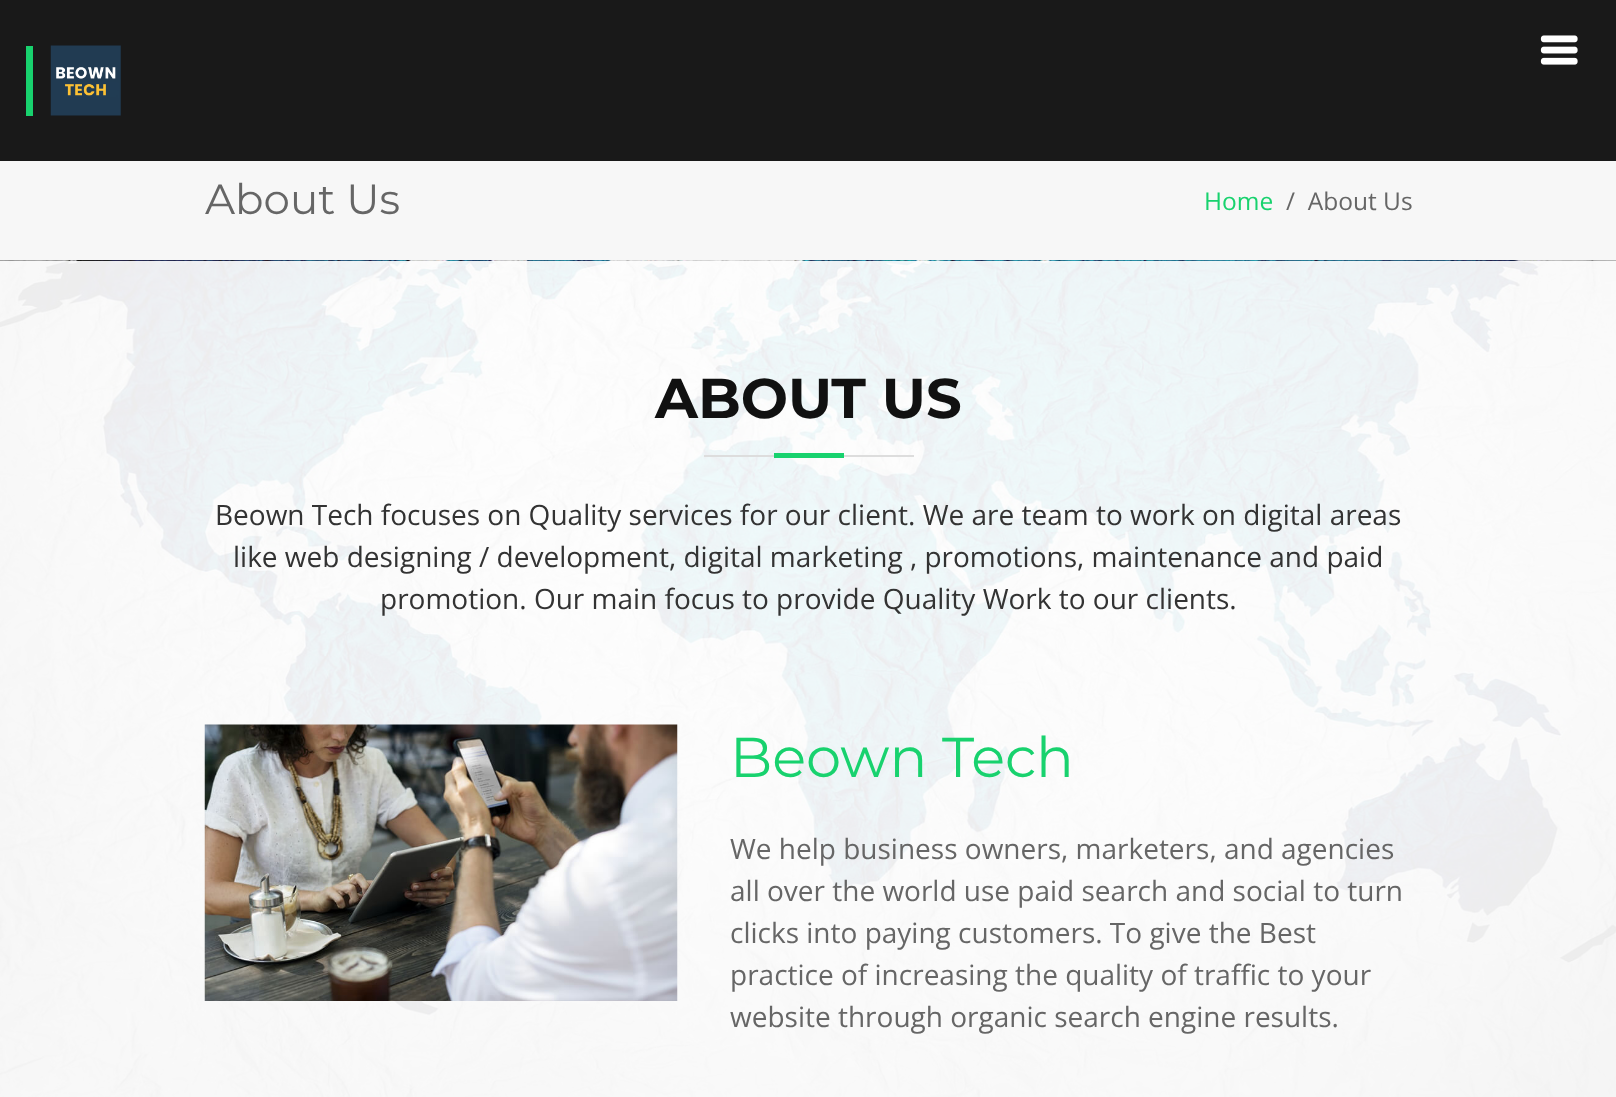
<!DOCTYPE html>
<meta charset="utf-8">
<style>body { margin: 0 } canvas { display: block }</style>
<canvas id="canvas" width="1616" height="1097"></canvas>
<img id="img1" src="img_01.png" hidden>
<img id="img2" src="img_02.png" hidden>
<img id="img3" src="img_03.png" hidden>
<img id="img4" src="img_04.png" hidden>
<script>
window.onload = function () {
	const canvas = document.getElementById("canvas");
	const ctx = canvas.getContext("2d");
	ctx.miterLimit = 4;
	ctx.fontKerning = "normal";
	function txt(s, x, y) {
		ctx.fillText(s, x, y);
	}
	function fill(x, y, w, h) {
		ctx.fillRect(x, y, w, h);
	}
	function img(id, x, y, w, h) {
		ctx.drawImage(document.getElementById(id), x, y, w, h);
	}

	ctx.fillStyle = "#191919";
	fill(0, 0, 1616, 1097);
	ctx.fillStyle = "#18D26E";
	fill(26, 46, 7, 70);
	img("img1", 50, 45, 71, 71);
	img("img2", 1540, 35, 38, 30);
	ctx.fillStyle = "#F7F7F7";
	fill(0, 161, 1616, 99);
	img("img3", 0, 260, 1616, 837);
	ctx.fillStyle = "#DDDDDD";
	fill(704, 455, 210, 2);
	ctx.fillStyle = "#18D26E";
	fill(774, 453, 70, 5);
	img("img4", 204, 724, 474, 277);
	ctx.font = "42px Montserrat";
	ctx.fillStyle = "#666666";
	txt("About Us", 205, 214);
	ctx.font = "24.5px Open Sans";
	ctx.fillStyle = "#18D26E";
	txt("Home", 1204, 210);
	ctx.fillStyle = "#666666";
	txt("/  About Us", 1286, 210);
	ctx.font = "bold 56px Montserrat";
	ctx.fillStyle = "#111111";
	txt("ABOUT US", 655, 418);
	ctx.font = "28px Open Sans";
	ctx.fillStyle = "#333333";
	txt("Beown Tech focuses on Quality services for our client. We are team to work on digital areas", 215, 525);
	txt("like web designing / development, digital marketing , promotions, maintenance and paid", 233, 567);
	txt("promotion. Our main focus to provide Quality Work to our clients.", 380, 609);
	ctx.font = "56px Montserrat";
	ctx.fillStyle = "#18D26E";
	txt("Beown Tech", 730, 777);
	ctx.font = "28px Open Sans";
	ctx.fillStyle = "#666666";
	txt("We help business owners, marketers, and agencies", 730, 859);
	txt("all over the world use paid search and social to turn", 730, 901);
	txt("clicks into paying customers. To give the Best", 730, 943);
	txt("practice of increasing the quality of traffic to your", 730, 985);
	txt("website through organic search engine results.", 730, 1027);
};
</script>
